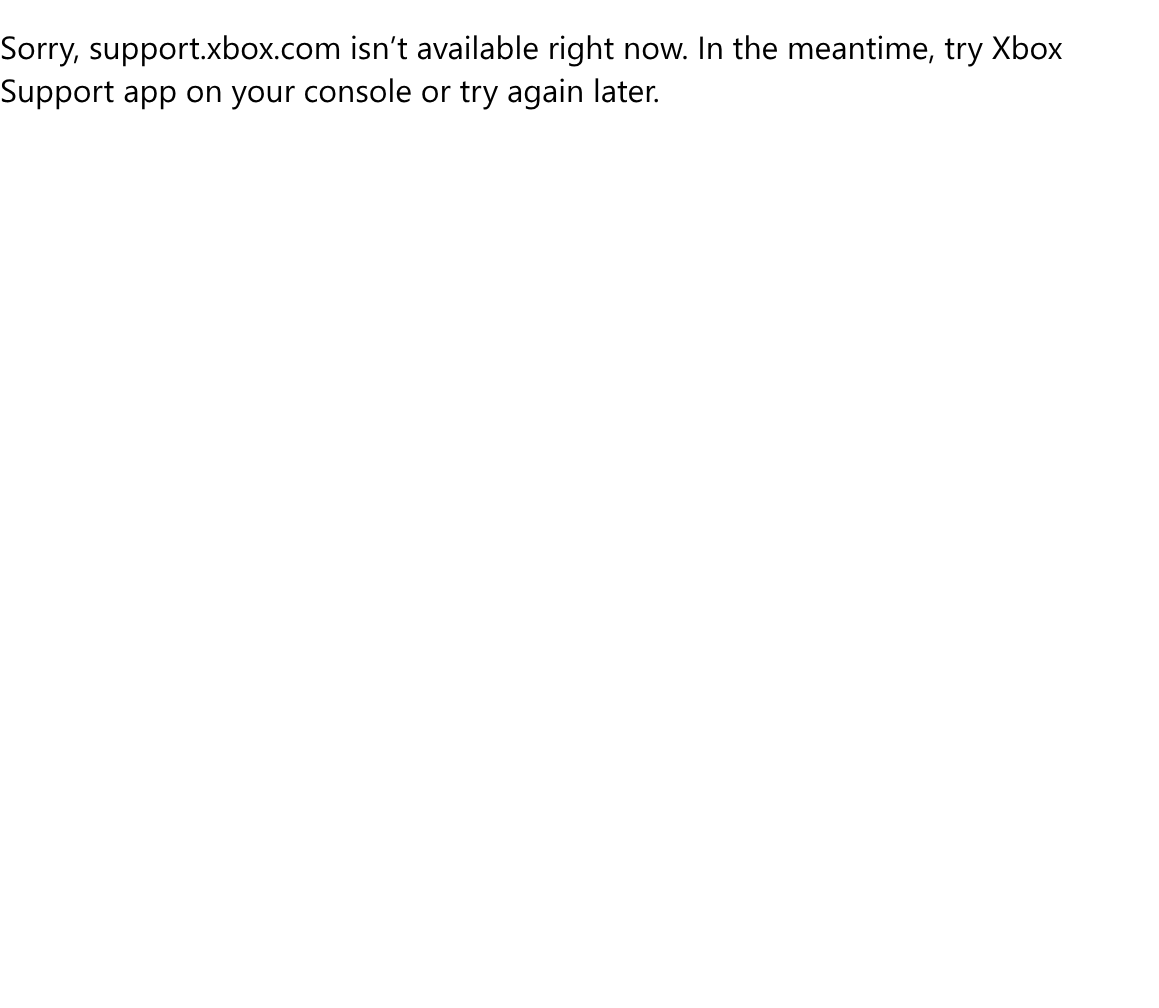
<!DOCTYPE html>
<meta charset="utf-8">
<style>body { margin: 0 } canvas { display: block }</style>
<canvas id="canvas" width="1159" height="1008"></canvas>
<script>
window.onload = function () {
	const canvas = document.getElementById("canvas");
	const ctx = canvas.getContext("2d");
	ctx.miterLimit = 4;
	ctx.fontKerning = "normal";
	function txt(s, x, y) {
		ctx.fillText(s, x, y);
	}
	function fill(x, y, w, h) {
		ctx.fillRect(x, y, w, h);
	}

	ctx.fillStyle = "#FFFFFF";
	fill(0, 0, 1159, 1008);
	ctx.font = "32px Segoe UI";
	ctx.fillStyle = "#000000";
	txt("Sorry, support.xbox.com isn’t available right now. In the meantime, try Xbox", 0, 59);
	txt("Support app on your console or try again later.", 0, 102);
};
</script>
